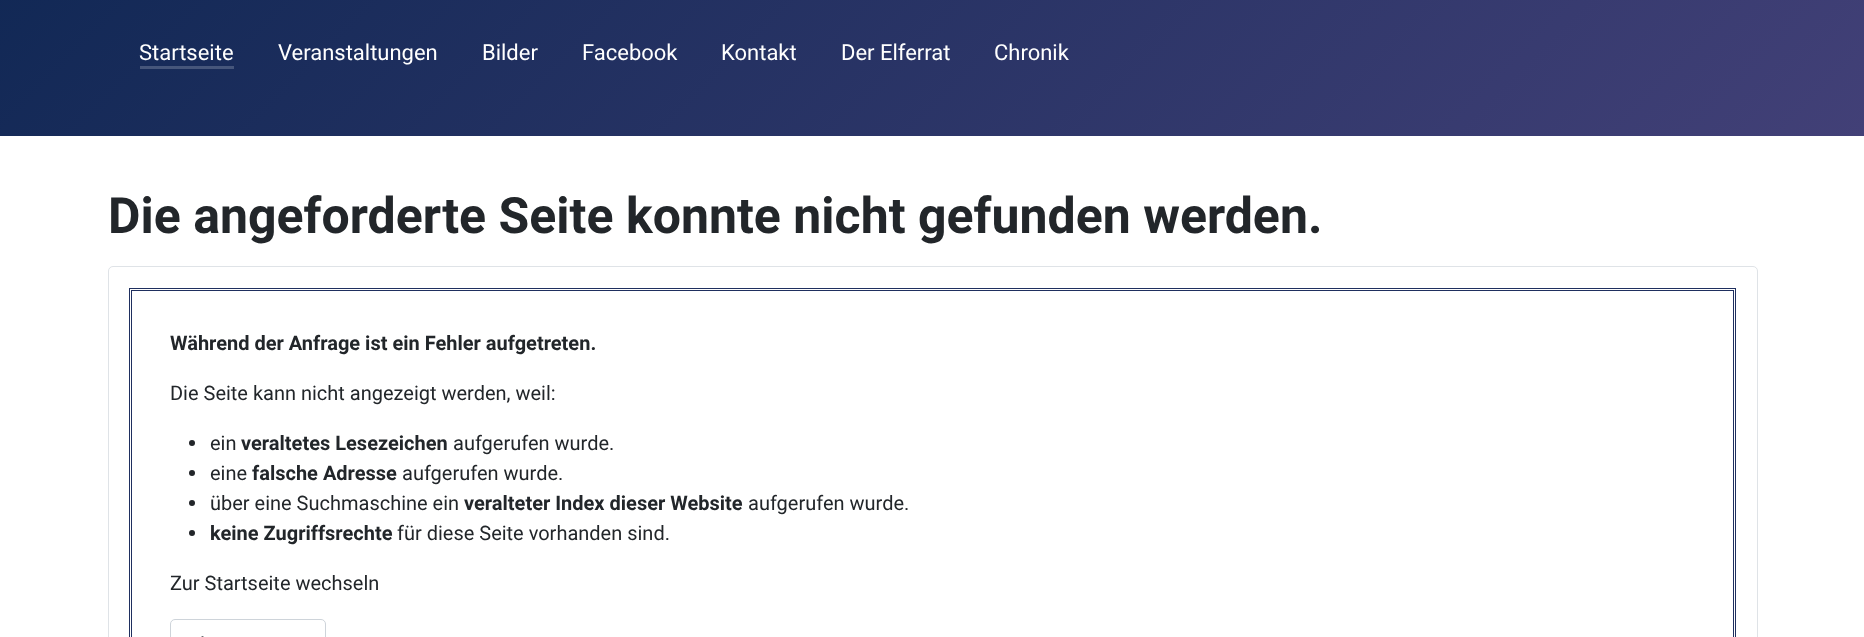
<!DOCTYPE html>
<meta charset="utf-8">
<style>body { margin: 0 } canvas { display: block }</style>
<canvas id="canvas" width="1864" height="637"></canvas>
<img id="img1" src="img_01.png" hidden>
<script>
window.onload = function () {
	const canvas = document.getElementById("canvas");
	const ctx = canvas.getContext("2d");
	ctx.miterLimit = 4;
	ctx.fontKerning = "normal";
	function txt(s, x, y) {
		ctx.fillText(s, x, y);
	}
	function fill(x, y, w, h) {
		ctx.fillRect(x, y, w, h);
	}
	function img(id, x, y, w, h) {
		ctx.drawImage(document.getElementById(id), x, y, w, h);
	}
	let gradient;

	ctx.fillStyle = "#FFFFFF";
	fill(0, 0, 1864, 637);
	gradient = ctx.createLinearGradient(424, -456, 1441, 561);
	gradient.addColorStop(0, "#112855");
	gradient.addColorStop(1, "#424077");
	ctx.fillStyle = gradient;
	fill(0, 0, 1864, 136);
	ctx.fillStyle = "#46567B";
	fill(140, 66, 94, 3);
	ctx.beginPath();
	ctx.roundRect(108.5, 266.5, 1649, 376, 4.5);
	ctx.strokeStyle = "#DFE3E7";
	ctx.stroke();
	ctx.strokeStyle = "#1F2F5F";
	ctx.strokeRect(129.5, 288.5, 1606, 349);
	ctx.strokeRect(131.5, 290.5, 1602, 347);
	ctx.fillStyle = "#22262A";
	ctx.beginPath();
	ctx.arc(192, 443, 3, 0, Math.PI * 2);
	ctx.fill();
	ctx.beginPath();
	ctx.arc(192, 473, 3, 0, Math.PI * 2);
	ctx.fill();
	ctx.beginPath();
	ctx.arc(192, 503, 3, 0, Math.PI * 2);
	ctx.fill();
	ctx.beginPath();
	ctx.arc(192, 533, 3, 0, Math.PI * 2);
	ctx.fill();
	ctx.beginPath();
	ctx.roundRect(170.5, 619.5, 155, 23, 4.5);
	ctx.strokeStyle = "#CED4DA";
	ctx.stroke();
	img("img1", 201, 636, 3, 1);
	ctx.font = "22px Roboto";
	ctx.fillStyle = "#FFFFFF";
	txt("Startseite", 139, 60);
	txt("Veranstaltungen", 278, 60);
	txt("Bilder", 482, 60);
	txt("Facebook", 582, 60);
	txt("Kontakt", 721, 60);
	txt("Der Elferrat", 841, 60);
	txt("Chronik", 994, 60);
	ctx.font = "bold 50px Roboto";
	ctx.fillStyle = "#22262A";
	txt("Die angeforderte Seite konnte nicht gefunden werden.", 108, 233);
	ctx.font = "bold 20px Roboto";
	txt("Während der Anfrage ist ein Fehler aufgetreten.", 170, 350);
	ctx.font = "20px Roboto";
	txt("Die Seite kann nicht angezeigt werden, weil:", 170, 400);
	txt("ein", 210, 450);
	ctx.font = "bold 20px Roboto";
	txt("veraltetes Lesezeichen", 241, 450);
	ctx.font = "20px Roboto";
	txt("aufgerufen wurde.", 453, 450);
	txt("eine", 210, 480);
	ctx.font = "bold 20px Roboto";
	txt("falsche Adresse", 252, 480);
	ctx.font = "20px Roboto";
	txt("aufgerufen wurde.", 402, 480);
	txt("über eine Suchmaschine ein", 210, 510);
	ctx.font = "bold 20px Roboto";
	txt("veralteter Index dieser Website", 464, 510);
	ctx.font = "20px Roboto";
	txt("aufgerufen wurde.", 748, 510);
	ctx.font = "bold 20px Roboto";
	txt("keine Zugriffsrechte", 210, 540);
	ctx.font = "20px Roboto";
	txt("für diese Seite vorhanden sind.", 397, 540);
	txt("Zur Startseite wechseln", 170, 590);
};
</script>
